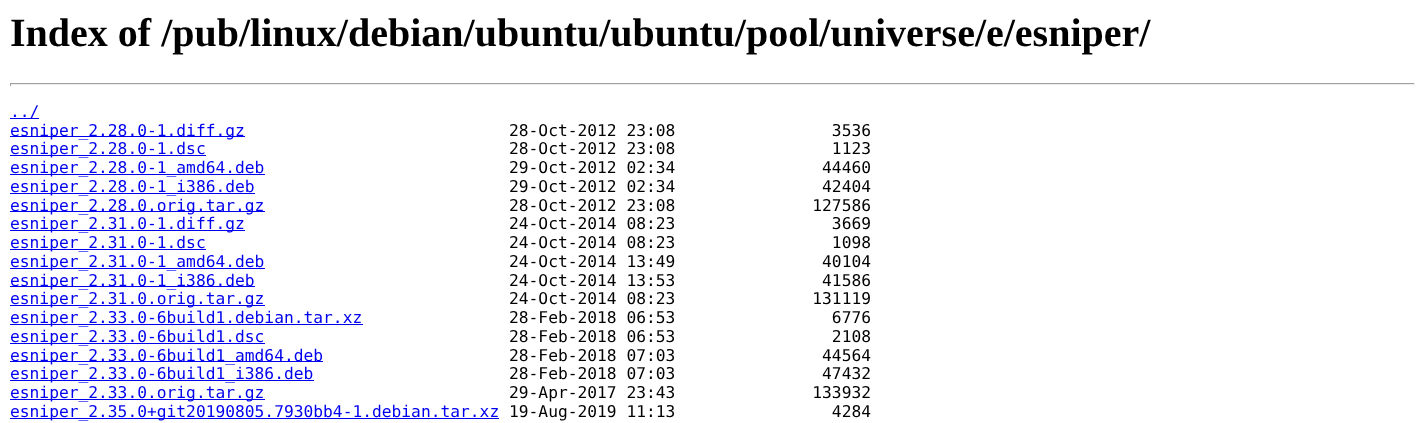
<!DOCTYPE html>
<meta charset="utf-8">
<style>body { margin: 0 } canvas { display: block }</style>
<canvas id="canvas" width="1425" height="423"></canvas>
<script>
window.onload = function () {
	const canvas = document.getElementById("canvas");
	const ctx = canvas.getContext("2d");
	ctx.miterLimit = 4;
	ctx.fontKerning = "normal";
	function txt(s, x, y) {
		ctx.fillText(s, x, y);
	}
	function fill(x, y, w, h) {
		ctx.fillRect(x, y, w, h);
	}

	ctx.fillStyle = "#FFFFFF";
	fill(0, 0, 1425, 423);
	ctx.fillStyle = "#9F9F9F";
	fill(10, 83, 1405, 1);
	ctx.fillStyle = "#EEEEEE";
	fill(1414, 83, 1, 3);
	fill(10, 84, 1405, 1);
	ctx.fillStyle = "#9F9F9F";
	fill(10, 83, 1, 3);
	ctx.fillStyle = "#0000EE";
	fill(10, 118, 29, 1);
	fill(10, 136, 235, 1);
	fill(10, 155, 196, 1);
	fill(10, 174, 255, 1);
	fill(10, 193, 245, 1);
	fill(10, 211, 255, 1);
	fill(10, 230, 235, 1);
	fill(10, 249, 196, 1);
	fill(10, 268, 255, 1);
	fill(10, 286, 245, 1);
	fill(10, 305, 255, 1);
	fill(10, 324, 353, 1);
	fill(10, 343, 255, 1);
	fill(10, 361, 313, 1);
	fill(10, 380, 304, 1);
	fill(10, 399, 255, 1);
	fill(10, 418, 489, 1);
	ctx.font = "bold 40px Liberation Serif";
	ctx.fillStyle = "#000000";
	txt("Index of /pub/linux/debian/ubuntu/ubuntu/pool/universe/e/esniper/", 10, 46);
	ctx.font = "16.25px DejaVu Sans Mono";
	ctx.fillStyle = "#0000EE";
	txt("../", 10, 117);
	txt("esniper_2.28.0-1.diff.gz", 10, 136);
	ctx.fillStyle = "#000000";
	txt("28-Oct-2012 23:08                3536", 509, 136);
	ctx.fillStyle = "#0000EE";
	txt("esniper_2.28.0-1.dsc", 10, 154);
	ctx.fillStyle = "#000000";
	txt("28-Oct-2012 23:08                1123", 509, 154);
	ctx.fillStyle = "#0000EE";
	txt("esniper_2.28.0-1_amd64.deb", 10, 173);
	ctx.fillStyle = "#000000";
	txt("29-Oct-2012 02:34               44460", 509, 173);
	ctx.fillStyle = "#0000EE";
	txt("esniper_2.28.0-1_i386.deb", 10, 192);
	ctx.fillStyle = "#000000";
	txt("29-Oct-2012 02:34               42404", 509, 192);
	ctx.fillStyle = "#0000EE";
	txt("esniper_2.28.0.orig.tar.gz", 10, 211);
	ctx.fillStyle = "#000000";
	txt("28-Oct-2012 23:08              127586", 509, 211);
	ctx.fillStyle = "#0000EE";
	txt("esniper_2.31.0-1.diff.gz", 10, 229);
	ctx.fillStyle = "#000000";
	txt("24-Oct-2014 08:23                3669", 509, 229);
	ctx.fillStyle = "#0000EE";
	txt("esniper_2.31.0-1.dsc", 10, 248);
	ctx.fillStyle = "#000000";
	txt("24-Oct-2014 08:23                1098", 509, 248);
	ctx.fillStyle = "#0000EE";
	txt("esniper_2.31.0-1_amd64.deb", 10, 267);
	ctx.fillStyle = "#000000";
	txt("24-Oct-2014 13:49               40104", 509, 267);
	ctx.fillStyle = "#0000EE";
	txt("esniper_2.31.0-1_i386.deb", 10, 286);
	ctx.fillStyle = "#000000";
	txt("24-Oct-2014 13:53               41586", 509, 286);
	ctx.fillStyle = "#0000EE";
	txt("esniper_2.31.0.orig.tar.gz", 10, 304);
	ctx.fillStyle = "#000000";
	txt("24-Oct-2014 08:23              131119", 509, 304);
	ctx.fillStyle = "#0000EE";
	txt("esniper_2.33.0-6build1.debian.tar.xz", 10, 323);
	ctx.fillStyle = "#000000";
	txt("28-Feb-2018 06:53                6776", 509, 323);
	ctx.fillStyle = "#0000EE";
	txt("esniper_2.33.0-6build1.dsc", 10, 342);
	ctx.fillStyle = "#000000";
	txt("28-Feb-2018 06:53                2108", 509, 342);
	ctx.fillStyle = "#0000EE";
	txt("esniper_2.33.0-6build1_amd64.deb", 10, 361);
	ctx.fillStyle = "#000000";
	txt("28-Feb-2018 07:03               44564", 509, 361);
	ctx.fillStyle = "#0000EE";
	txt("esniper_2.33.0-6build1_i386.deb", 10, 379);
	ctx.fillStyle = "#000000";
	txt("28-Feb-2018 07:03               47432", 509, 379);
	ctx.fillStyle = "#0000EE";
	txt("esniper_2.33.0.orig.tar.gz", 10, 398);
	ctx.fillStyle = "#000000";
	txt("29-Apr-2017 23:43              133932", 509, 398);
	ctx.fillStyle = "#0000EE";
	txt("esniper_2.35.0+git20190805.7930bb4-1.debian.tar.xz", 10, 417);
	ctx.fillStyle = "#000000";
	txt("19-Aug-2019 11:13                4284", 509, 417);
};
</script>
